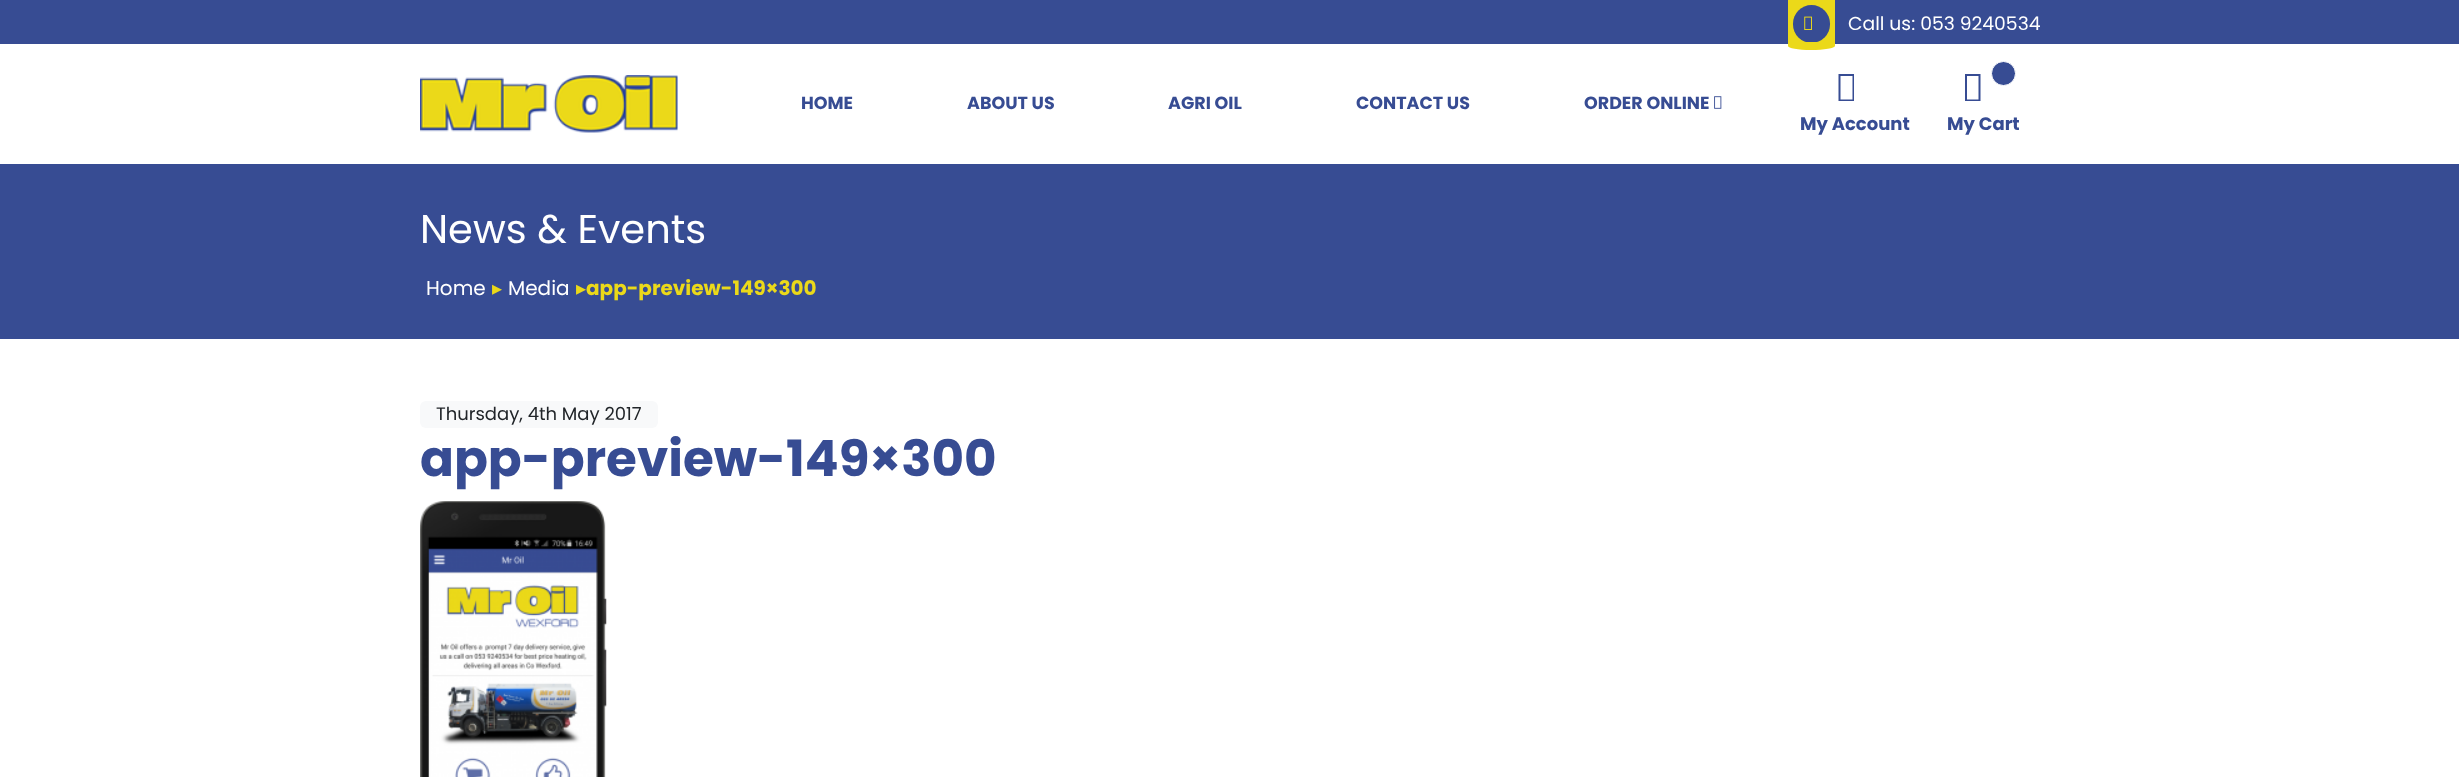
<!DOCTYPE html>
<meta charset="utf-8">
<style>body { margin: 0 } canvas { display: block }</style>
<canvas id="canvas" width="2459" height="777"></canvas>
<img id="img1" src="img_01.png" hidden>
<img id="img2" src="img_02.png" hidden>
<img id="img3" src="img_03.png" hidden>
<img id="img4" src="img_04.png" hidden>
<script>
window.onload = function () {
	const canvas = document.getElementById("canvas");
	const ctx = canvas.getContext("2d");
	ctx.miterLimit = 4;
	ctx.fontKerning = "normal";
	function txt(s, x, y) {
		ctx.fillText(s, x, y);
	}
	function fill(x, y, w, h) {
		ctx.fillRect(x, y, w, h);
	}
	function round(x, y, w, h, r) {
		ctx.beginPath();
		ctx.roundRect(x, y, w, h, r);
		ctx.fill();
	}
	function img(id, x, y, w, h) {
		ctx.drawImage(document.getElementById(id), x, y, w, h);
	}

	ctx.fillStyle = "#FFFFFF";
	fill(0, 0, 2459, 777);
	ctx.fillStyle = "#374C93";
	fill(0, 0, 2459, 44);
	ctx.fillStyle = "#EBD919";
	fill(1788, 0, 47, 42);
	ctx.fillStyle = "#374C93";
	round(1793, 5, 37, 38, 18.5);
	img("img1", 1804, 16, 8, 14);
	ctx.fillStyle = "#EBD919";
	ctx.beginPath();
	ctx.moveTo(1788, 42);
	ctx.lineTo(1835, 42);
	ctx.lineTo(1835, 46);
	ctx.bezierCurveTo(1835, 48, 1824, 50, 1811, 50);
	ctx.bezierCurveTo(1798, 50, 1788, 48, 1788, 46);
	ctx.closePath();
	ctx.fill();
	img("img2", 420, 75, 258, 58);
	img("img3", 1714, 96, 8, 13);
	ctx.fillStyle = "#374C93";
	ctx.beginPath();
	ctx.moveTo(1838.5, 101);
	ctx.lineTo(1838.5, 74);
	ctx.lineTo(1854, 74);
	ctx.lineTo(1854, 101);
	ctx.closePath();
	ctx.moveTo(1840.5, 99.5);
	ctx.lineTo(1852.5, 99.5);
	ctx.lineTo(1852.5, 76);
	ctx.lineTo(1840.5, 76);
	ctx.closePath();
	ctx.fill();
	ctx.beginPath();
	ctx.moveTo(1965, 101);
	ctx.lineTo(1965, 74);
	ctx.lineTo(1980.5, 74);
	ctx.lineTo(1980.5, 101);
	ctx.closePath();
	ctx.moveTo(1967, 99.5);
	ctx.lineTo(1978.5, 99.5);
	ctx.lineTo(1978.5, 76);
	ctx.lineTo(1967, 76);
	ctx.closePath();
	ctx.fill();
	ctx.beginPath();
	ctx.arc(2003.5, 73.5, 12, 0, Math.PI * 2);
	ctx.fill();
	ctx.strokeStyle = "#FFFFFF";
	ctx.stroke();
	fill(0, 164, 2459, 175);
	ctx.fillStyle = "#F8F9FA";
	round(420, 401, 238, 27, 6);
	img("img4", 420, 501, 187, 276);
	ctx.font = "18.75px Poppins";
	ctx.fillStyle = "#FFFFFF";
	txt("Call us: 053 9240534", 1848, 30);
	ctx.font = "bold 17.5px Poppins";
	ctx.fillStyle = "#374C93";
	txt("HOME", 801, 109);
	txt("ABOUT US", 967, 109);
	txt("AGRI OIL", 1168, 109);
	txt("CONTACT US", 1356, 109);
	txt("ORDER ONLINE", 1584, 109);
	ctx.font = "bold 18px Poppins";
	txt("My Account", 1800, 130);
	txt("My Cart", 1947, 130);
	ctx.font = "40px Poppins";
	ctx.fillStyle = "#FFFFFF";
	txt("News & Events", 420, 243);
	ctx.font = "20px Poppins";
	txt("Home", 426, 295);
	ctx.font = "20px DejaVu Sans";
	ctx.fillStyle = "#EBD919";
	txt("▸", 492, 295);
	ctx.font = "20px Poppins";
	ctx.fillStyle = "#FFFFFF";
	txt("Media", 508, 295);
	ctx.font = "20px DejaVu Sans";
	ctx.fillStyle = "#EBD919";
	txt("▸", 576, 295);
	ctx.font = "bold 20px Poppins";
	txt("app-preview-149×300", 586, 295);
	ctx.font = "18px Poppins";
	ctx.fillStyle = "#212529";
	txt("Thursday, 4th May 2017", 436, 420);
	ctx.font = "bold 50px Poppins";
	ctx.fillStyle = "#374C93";
	txt("app-preview-149×300", 420, 476);
};
</script>
